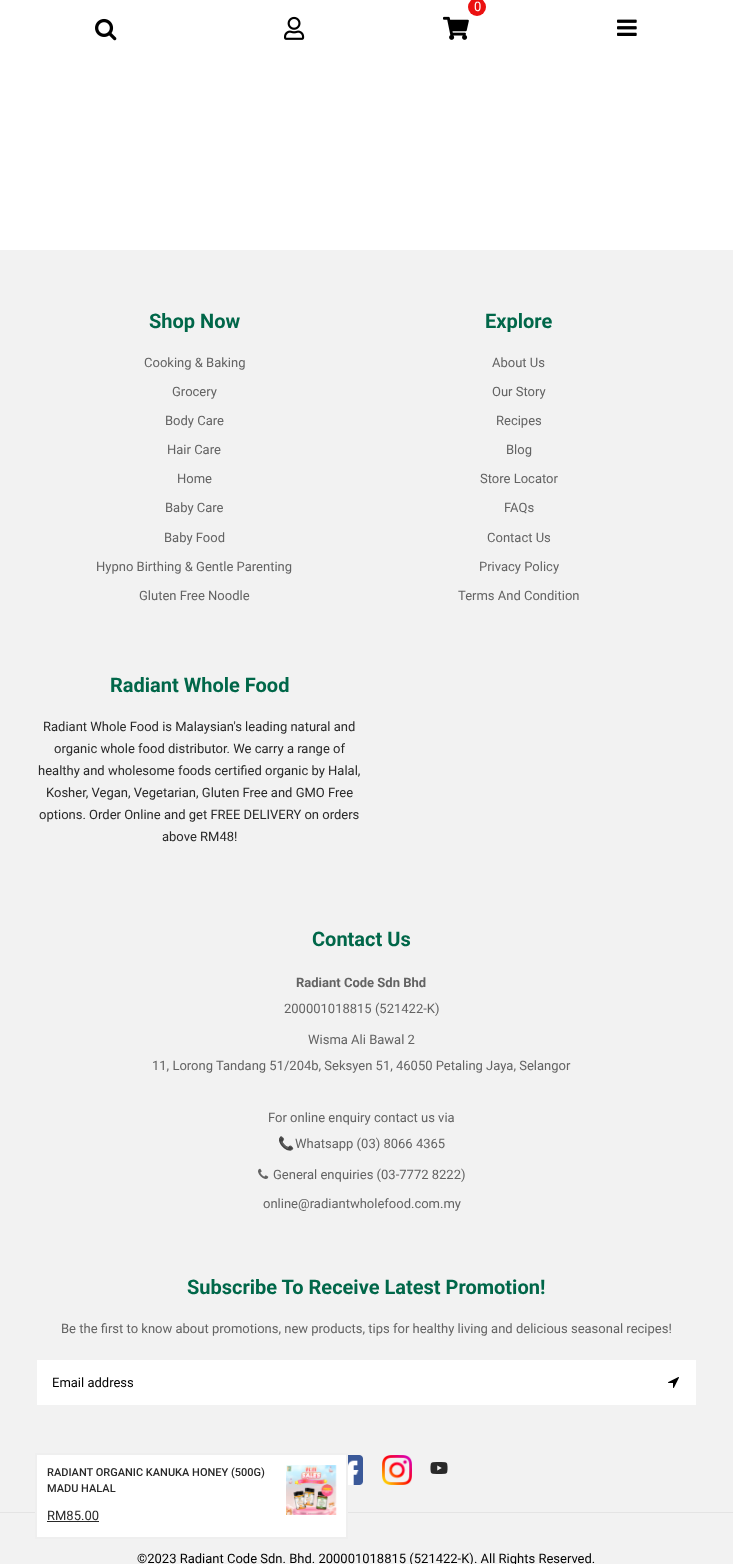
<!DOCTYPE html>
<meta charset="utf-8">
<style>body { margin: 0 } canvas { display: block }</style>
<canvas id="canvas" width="733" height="1564"></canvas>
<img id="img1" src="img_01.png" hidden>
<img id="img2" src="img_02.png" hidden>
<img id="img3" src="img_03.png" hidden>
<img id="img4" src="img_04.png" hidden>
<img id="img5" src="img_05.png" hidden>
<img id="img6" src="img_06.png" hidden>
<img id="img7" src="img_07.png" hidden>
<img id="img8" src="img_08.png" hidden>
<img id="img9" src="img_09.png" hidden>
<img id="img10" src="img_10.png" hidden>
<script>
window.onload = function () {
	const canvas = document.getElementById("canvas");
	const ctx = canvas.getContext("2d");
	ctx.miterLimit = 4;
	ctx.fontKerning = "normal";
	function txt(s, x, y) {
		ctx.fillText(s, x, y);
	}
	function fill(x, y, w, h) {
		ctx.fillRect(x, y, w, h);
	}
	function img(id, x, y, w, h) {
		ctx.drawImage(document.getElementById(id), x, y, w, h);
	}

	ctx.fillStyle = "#FFFFFF";
	fill(0, 0, 733, 1564);
	ctx.fillStyle = "#EB1111";
	ctx.beginPath();
	ctx.arc(477, 7, 9, 0, Math.PI * 2);
	ctx.fill();
	img("img1", 443, 16, 26, 24);
	img("img2", 95, 18, 22, 23);
	img("img3", 284, 16, 21, 24);
	img("img4", 617, 19, 20, 17);
	ctx.fillStyle = "#F2F2F2";
	fill(0, 250, 733, 1262);
	img("img5", 258, 1168, 11, 11);
	ctx.fillStyle = "#FFFFFF";
	fill(37, 1360, 659, 45);
	img("img6", 668, 1377, 11, 11);
	img("img7", 348, 1455, 15, 30);
	img("img8", 382, 1455, 30, 30);
	img("img9", 430, 1462, 18, 12);
	ctx.fillStyle = "#E4E4E4";
	fill(0, 1512, 733, 1);
	ctx.fillStyle = "#F2F2F2";
	fill(0, 1513, 733, 51);
	ctx.fillStyle = "#FFFFFF";
	ctx.beginPath();
	ctx.rect(36, 1454, 311, 84);
	ctx.fill();
	ctx.strokeStyle = "#EFEFEF";
	ctx.lineWidth = 2;
	ctx.stroke();
	img("img10", 286, 1465, 51, 50);
	ctx.fillStyle = "#292929";
	fill(47, 1521, 52, 1);
	ctx.font = "13px Roboto";
	ctx.fillStyle = "#FFFFFF";
	txt("0", 474, 11);
	ctx.font = "bold 20px Roboto";
	ctx.fillStyle = "#006749";
	txt("Shop Now", 149, 328);
	ctx.font = "13px Roboto";
	ctx.fillStyle = "#636363";
	txt("Cooking & Baking", 144, 367);
	txt("Grocery", 172, 396);
	txt("Body Care", 165, 425);
	txt("Hair Care", 167, 454);
	txt("Home", 177, 483);
	txt("Baby Care", 165, 512);
	txt("Baby Food", 164, 542);
	txt("Hypno Birthing & Gentle Parenting", 96, 571);
	txt("Gluten Free Noodle", 139, 600);
	ctx.font = "bold 20px Roboto";
	ctx.fillStyle = "#006749";
	txt("Explore", 485, 328);
	ctx.font = "13px Roboto";
	ctx.fillStyle = "#636363";
	txt("About Us", 492, 367);
	txt("Our Story", 492, 396);
	txt("Recipes", 496, 425);
	txt("Blog", 506, 454);
	txt("Store Locator", 480, 483);
	txt("FAQs", 504, 512);
	txt("Contact Us", 487, 542);
	txt("Privacy Policy", 479, 571);
	txt("Terms And Condition", 458, 600);
	ctx.font = "bold 20px Roboto";
	ctx.fillStyle = "#006749";
	txt("Radiant Whole Food", 110, 692);
	ctx.font = "13px Roboto";
	ctx.fillStyle = "#292929";
	txt("Radiant Whole Food is Malaysian's leading natural and", 43, 731);
	txt("organic whole food distributor. We carry a range of", 54, 753);
	txt("healthy and wholesome foods certified organic by Halal,", 38, 775);
	txt("Kosher, Vegan, Vegetarian, Gluten Free and GMO Free", 46, 797);
	txt("options. Order Online and get FREE DELIVERY on orders", 39, 819);
	txt("above RM48!", 162, 841);
	ctx.font = "bold 20px Roboto";
	ctx.fillStyle = "#006749";
	txt("Contact Us", 312, 946);
	ctx.font = "bold 13px Roboto";
	ctx.fillStyle = "#636363";
	txt("Radiant Code Sdn Bhd", 296, 987);
	ctx.font = "13px Roboto";
	txt("200001018815 (521422-K)", 284, 1013);
	txt("Wisma Ali Bawal 2", 308, 1044);
	txt("11, Lorong Tandang 51/204b, Seksyen 51, 46050 Petaling Jaya, Selangor", 152, 1070);
	txt("For online enquiry contact us via", 268, 1122);
	ctx.font = "13px Noto Color Emoji";
	txt("📞", 278, 1148);
	ctx.font = "13px Roboto";
	txt("Whatsapp (03) 8066 4365", 295, 1148);
	txt("General enquiries (03-7772 8222)", 273, 1179);
	txt("online@radiantwholefood.com.my", 263, 1208);
	ctx.font = "bold 20px Roboto";
	ctx.fillStyle = "#006749";
	txt("Subscribe To Receive Latest Promotion!", 187, 1294);
	ctx.font = "13px Roboto";
	ctx.fillStyle = "#636363";
	txt("Be the first to know about promotions, new products, tips for healthy living and delicious seasonal recipes!", 61, 1333);
	ctx.fillStyle = "#000000";
	txt("Email address", 52, 1387);
	txt("©2023 Radiant Code Sdn. Bhd. 200001018815 (521422-K). All Rights Reserved.", 137, 1563);
	ctx.font = "500 11px Roboto";
	ctx.fillStyle = "#292929";
	txt("RADIANT ORGANIC KANUKA HONEY (500G)", 47, 1476);
	txt("MADU HALAL", 47, 1492);
	ctx.font = "13px Roboto";
	txt("RM85.00", 47, 1520);
};
</script>
